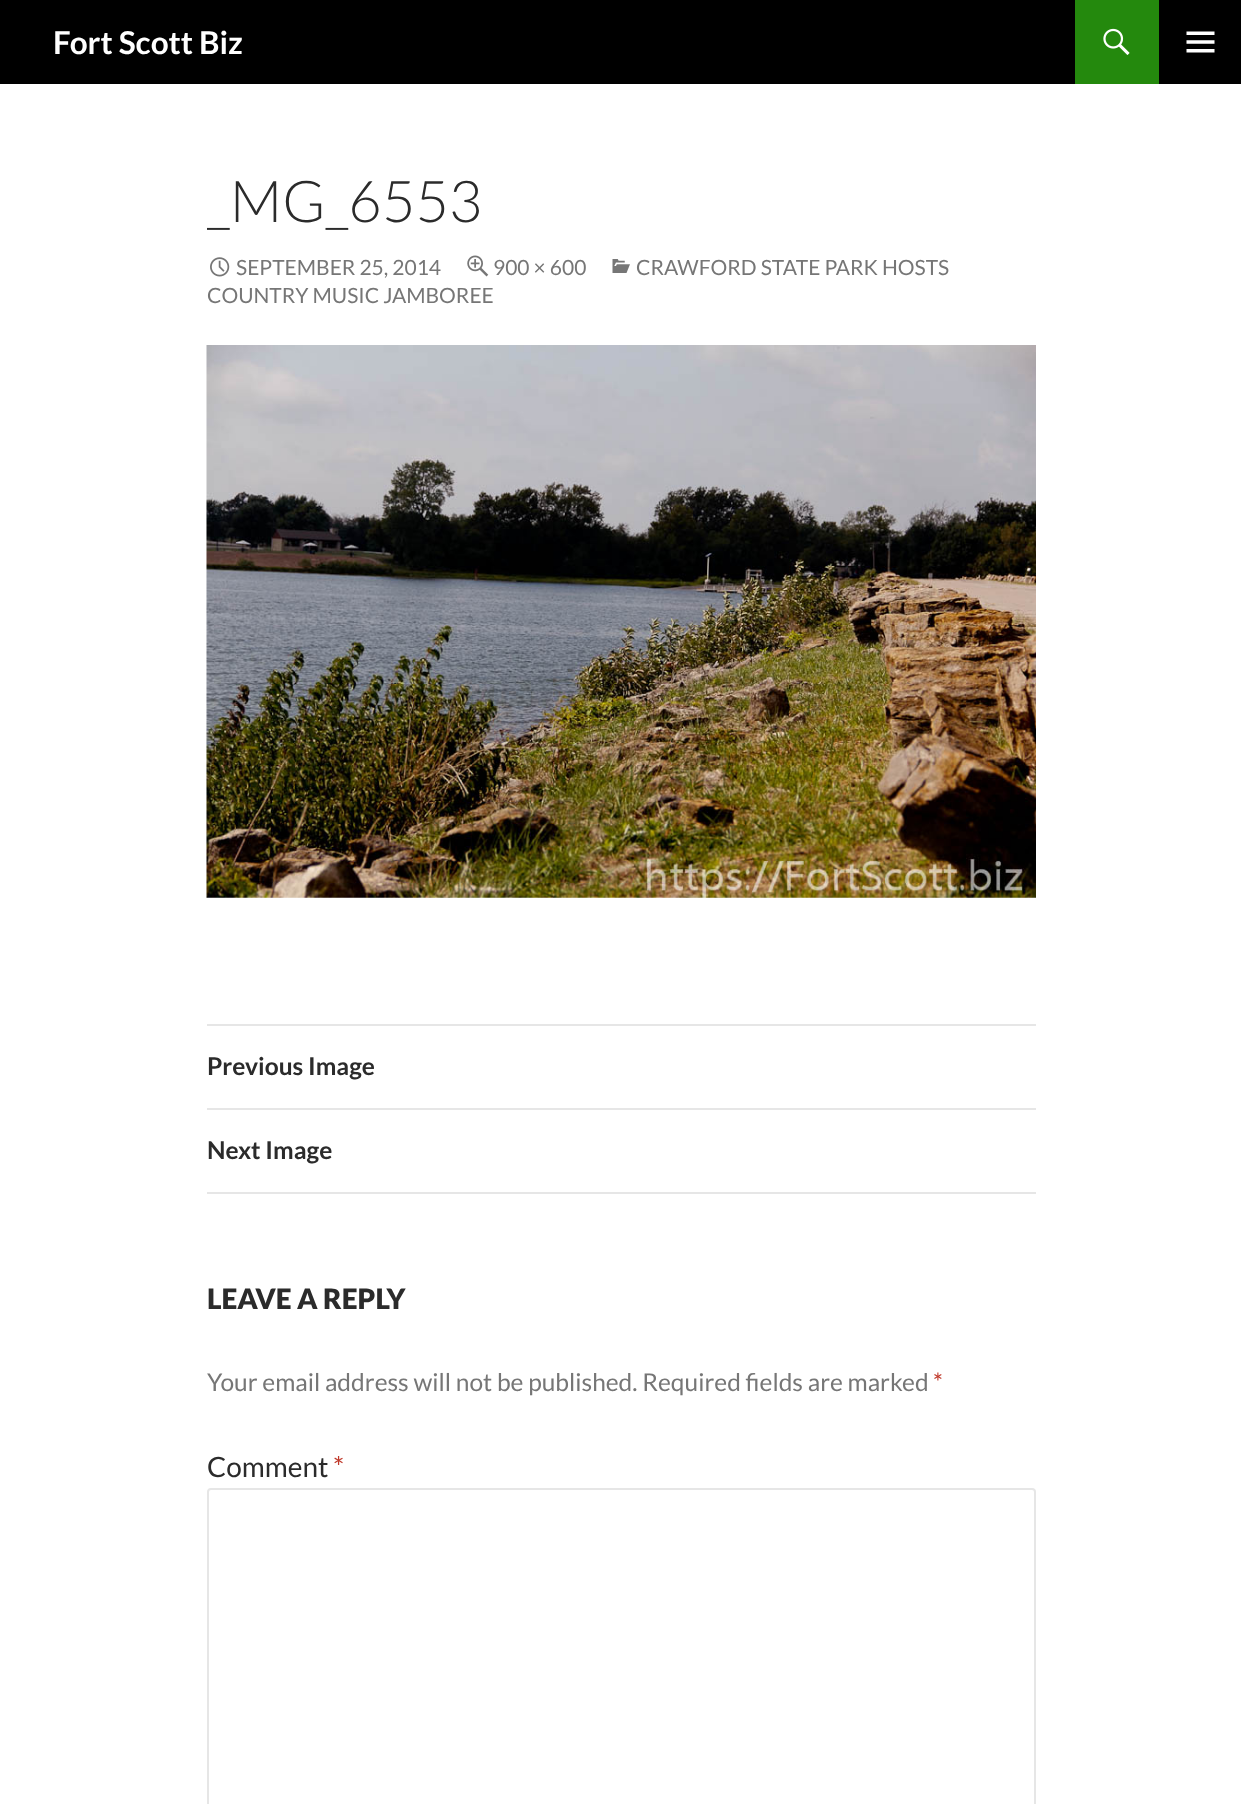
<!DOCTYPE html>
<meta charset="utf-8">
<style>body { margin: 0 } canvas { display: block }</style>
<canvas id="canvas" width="1241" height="1804"></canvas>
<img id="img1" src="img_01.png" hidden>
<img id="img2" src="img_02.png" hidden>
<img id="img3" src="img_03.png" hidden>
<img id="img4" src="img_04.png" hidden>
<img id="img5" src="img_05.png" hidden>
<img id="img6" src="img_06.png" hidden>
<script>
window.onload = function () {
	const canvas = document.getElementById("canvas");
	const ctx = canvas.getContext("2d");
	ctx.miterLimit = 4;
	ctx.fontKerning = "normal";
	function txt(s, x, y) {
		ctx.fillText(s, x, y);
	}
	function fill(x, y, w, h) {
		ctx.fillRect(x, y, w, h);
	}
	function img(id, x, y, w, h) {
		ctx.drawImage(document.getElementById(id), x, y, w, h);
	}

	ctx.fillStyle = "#FFFFFF";
	fill(0, 0, 1241, 1804);
	ctx.fillStyle = "#000000";
	fill(0, 0, 1241, 84);
	ctx.fillStyle = "#24890D";
	fill(1075, 0, 84, 84);
	img("img1", 1103, 28, 27, 27);
	img("img2", 1186, 31, 29, 22);
	img("img3", 612, 259, 18, 14);
	img("img4", 210, 257, 20, 20);
	img("img5", 467, 255, 22, 22);
	img("img6", 206, 345, 830, 553);
	ctx.fillStyle = "#E6E6E6";
	fill(207, 1024, 829, 2);
	fill(207, 1108, 829, 2);
	fill(207, 1192, 829, 2);
	ctx.beginPath();
	ctx.roundRect(208, 1489, 827, 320, 3);
	ctx.strokeStyle = "#E6E6E6";
	ctx.lineWidth = 2;
	ctx.stroke();
	ctx.font = "bold 31.5px Lato";
	ctx.fillStyle = "#FFFFFF";
	txt("Fort Scott Biz", 53, 54);
	ctx.font = "300 57.75px Lato";
	ctx.fillStyle = "#2B2B2B";
	txt("_MG_6553", 207, 222);
	ctx.font = "21px Lato";
	ctx.fillStyle = "#767676";
	txt("CRAWFORD STATE PARK HOSTS", 636, 275);
	txt("COUNTRY MUSIC JAMBOREE", 207, 303);
	txt("SEPTEMBER 25, 2014", 236, 275);
	txt("900 × 600", 493, 275);
	ctx.font = "bold 24.5px Lato";
	ctx.fillStyle = "#2B2B2B";
	txt("Previous Image", 207, 1075);
	txt("Next Image", 207, 1159);
	ctx.font = "900 28px Lato";
	txt("LEAVE A REPLY", 207, 1309);
	ctx.font = "24.5px Lato";
	ctx.fillStyle = "#767676";
	txt("Your email address will not be published. Required fields are marked", 207, 1391);
	ctx.fillStyle = "#C0392B";
	txt("*", 933, 1391);
	ctx.font = "28px Lato";
	ctx.fillStyle = "#2B2B2B";
	txt("Comment", 207, 1477);
	ctx.fillStyle = "#C0392B";
	txt("*", 333, 1477);
};
</script>
